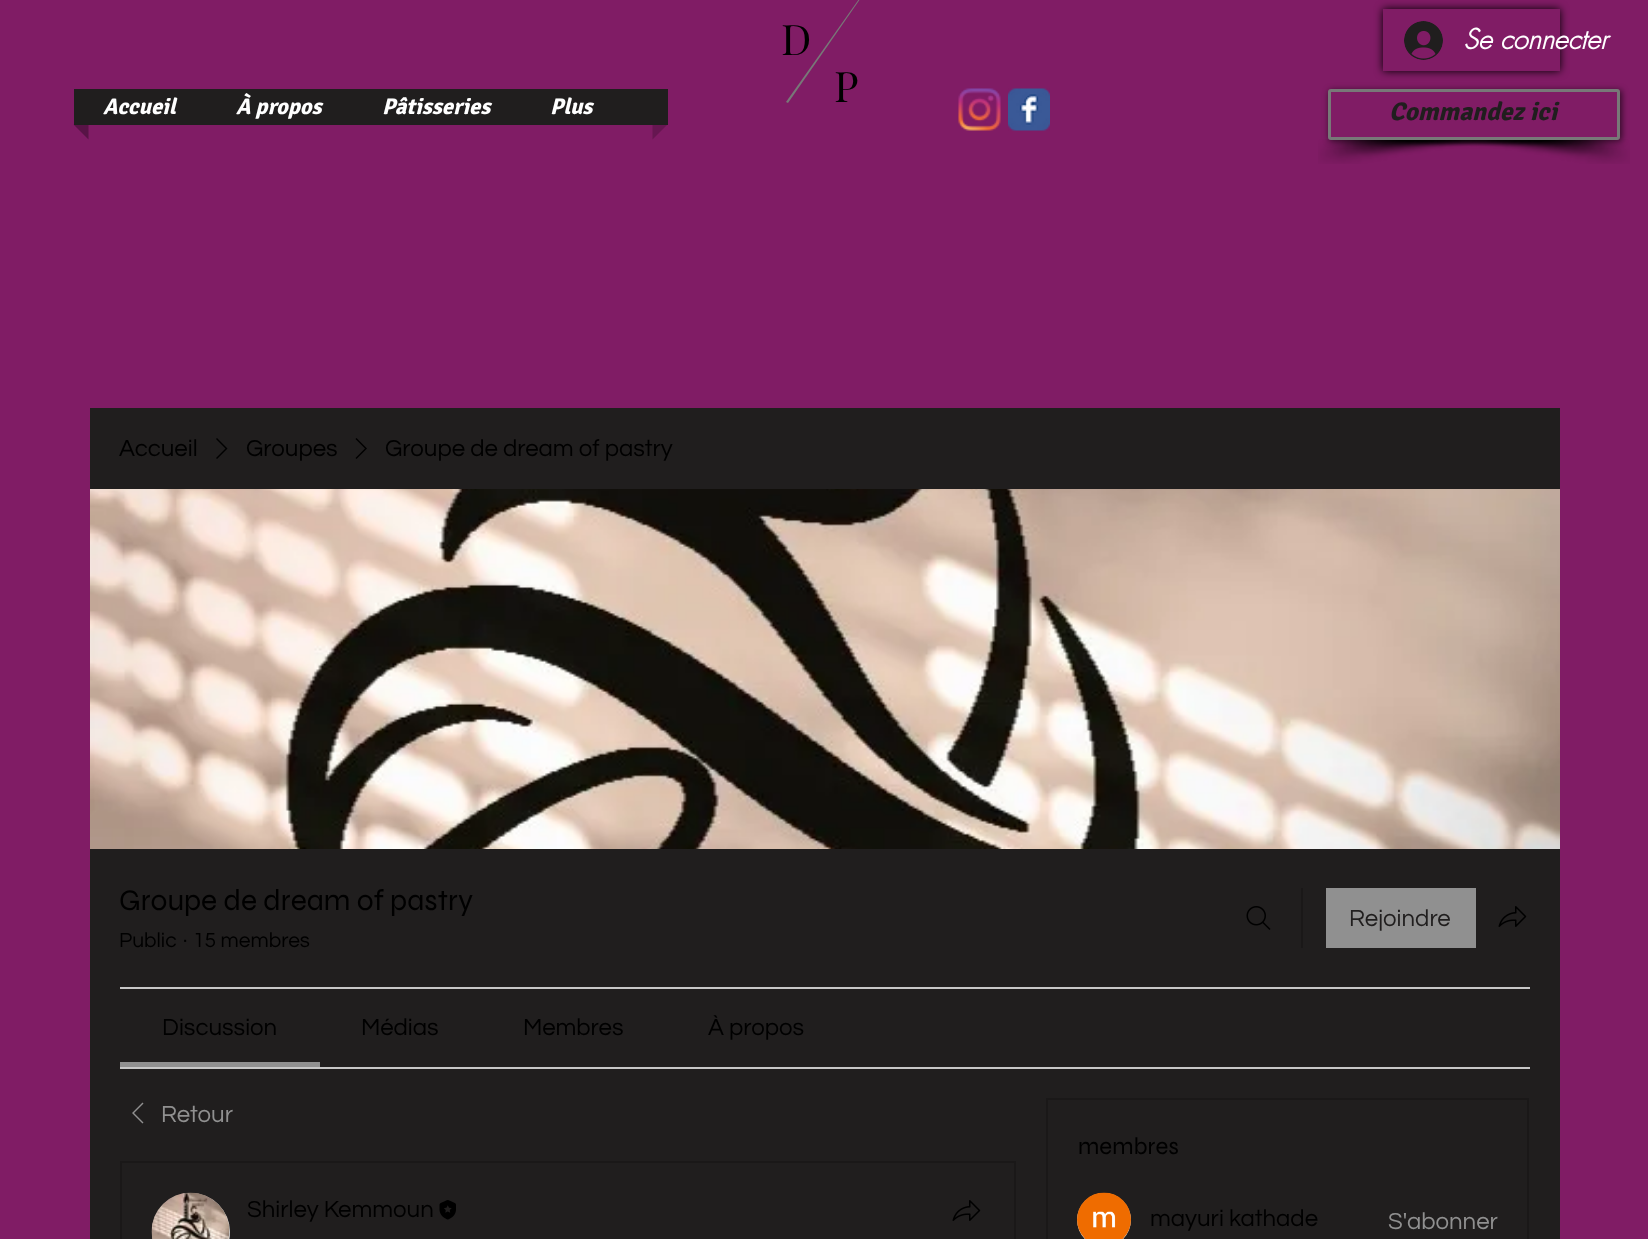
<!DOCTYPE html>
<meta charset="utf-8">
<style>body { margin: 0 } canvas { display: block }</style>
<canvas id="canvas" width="1648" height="1239"></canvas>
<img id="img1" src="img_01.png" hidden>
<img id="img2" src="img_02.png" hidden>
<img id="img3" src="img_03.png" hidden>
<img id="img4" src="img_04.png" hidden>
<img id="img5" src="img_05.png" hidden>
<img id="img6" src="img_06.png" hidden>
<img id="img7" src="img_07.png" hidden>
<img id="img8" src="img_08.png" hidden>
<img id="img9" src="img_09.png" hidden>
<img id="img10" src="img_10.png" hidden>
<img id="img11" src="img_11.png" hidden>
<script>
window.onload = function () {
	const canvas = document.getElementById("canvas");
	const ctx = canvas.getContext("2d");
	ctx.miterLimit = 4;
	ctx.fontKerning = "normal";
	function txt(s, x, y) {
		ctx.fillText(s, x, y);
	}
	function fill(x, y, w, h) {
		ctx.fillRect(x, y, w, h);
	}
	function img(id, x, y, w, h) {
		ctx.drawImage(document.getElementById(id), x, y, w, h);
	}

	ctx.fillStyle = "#801C65";
	fill(0, 0, 1648, 1239);
	ctx.fillStyle = "#787878";
	ctx.beginPath();
	ctx.moveTo(786, 102);
	ctx.lineTo(864, -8);
	ctx.lineTo(865, -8);
	ctx.lineTo(788, 103);
	ctx.closePath();
	ctx.fill();
	ctx.save();
	ctx.beginPath();
	ctx.moveTo(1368, 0);
	ctx.lineTo(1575, 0);
	ctx.lineTo(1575, 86);
	ctx.lineTo(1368, 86);
	ctx.closePath();
	ctx.moveTo(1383, 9);
	ctx.lineTo(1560, 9);
	ctx.lineTo(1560, 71);
	ctx.lineTo(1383, 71);
	ctx.closePath();
	ctx.clip("evenodd");
	ctx.fillStyle = "#000000";
	ctx.filter = "blur(4.5px)";
	ctx.beginPath();
	ctx.rect(1383, 9, 177, 62);
	ctx.fill();
	ctx.filter = "none";
	ctx.restore();
	img("img1", 1404, 21, 39, 39);
	ctx.fillStyle = "#581346";
	ctx.beginPath();
	ctx.moveTo(73.5, 124.5);
	ctx.lineTo(88.5, 124.5);
	ctx.lineTo(88.5, 139.5);
	ctx.closePath();
	ctx.fill();
	ctx.fillStyle = "#661651";
	ctx.beginPath();
	ctx.moveTo(652.5, 124.5);
	ctx.lineTo(667.5, 124.5);
	ctx.lineTo(652.5, 139.5);
	ctx.closePath();
	ctx.fill();
	ctx.fillStyle = "#201E1E";
	fill(74, 89, 594, 36);
	img("img2", 958, 88, 43, 43);
	img("img3", 1008, 88, 42, 43);
	img("img4", 1318, 139, 215, 25);
	img("img5", 1437, 139, 193, 25);
	ctx.save();
	ctx.beginPath();
	ctx.moveTo(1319, 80);
	ctx.lineTo(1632, 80);
	ctx.lineTo(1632, 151);
	ctx.lineTo(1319, 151);
	ctx.closePath();
	ctx.moveTo(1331, 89);
	ctx.lineTo(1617, 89);
	ctx.bezierCurveTo(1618.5, 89, 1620, 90.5, 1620, 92);
	ctx.lineTo(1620, 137);
	ctx.bezierCurveTo(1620, 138.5, 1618.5, 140, 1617, 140);
	ctx.lineTo(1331, 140);
	ctx.bezierCurveTo(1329.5, 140, 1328, 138.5, 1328, 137);
	ctx.lineTo(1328, 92);
	ctx.bezierCurveTo(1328, 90.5, 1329.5, 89, 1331, 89);
	ctx.closePath();
	ctx.clip("evenodd");
	ctx.fillStyle = "rgba(0, 0, 0, 0.6)";
	ctx.filter = "blur(3px)";
	ctx.beginPath();
	ctx.roundRect(1329, 90, 293, 51, 3);
	ctx.fill();
	ctx.filter = "none";
	ctx.restore();
	ctx.beginPath();
	ctx.roundRect(1329.5, 90.5, 289, 48, 1.5);
	ctx.strokeStyle = "#787878";
	ctx.lineWidth = 3;
	ctx.stroke();
	fill(90, 408, 1470, 831);
	ctx.fillStyle = "#000000";
	ctx.beginPath();
	ctx.moveTo(217, 438);
	ctx.lineTo(227.5, 448.5);
	ctx.lineTo(217, 459);
	ctx.lineTo(216, 458);
	ctx.lineTo(225.5, 448.5);
	ctx.lineTo(216, 439);
	ctx.closePath();
	ctx.fill("evenodd");
	ctx.beginPath();
	ctx.moveTo(356.5, 438);
	ctx.lineTo(367, 448.5);
	ctx.lineTo(356.5, 459);
	ctx.lineTo(355.5, 458);
	ctx.lineTo(365, 448.5);
	ctx.lineTo(355.5, 439);
	ctx.closePath();
	ctx.fill("evenodd");
	img("img6", 90, 489, 1470, 360);
	img("img7", 1246, 906, 25, 24);
	ctx.fillStyle = "#1A1818";
	fill(1301, 888, 2, 60);
	ctx.fillStyle = "#909090";
	fill(1326, 888, 150, 60);
	img("img8", 1498, 906, 29, 21);
	ctx.fillStyle = "#C7C7C7";
	fill(120, 987, 1410, 2);
	fill(120, 1067, 1410, 2);
	ctx.fillStyle = "#909090";
	fill(120, 1062, 200, 5);
	ctx.beginPath();
	ctx.moveTo(142.5, 1102.5);
	ctx.lineTo(143.5, 1103.5);
	ctx.lineTo(134, 1113);
	ctx.lineTo(143.5, 1122.5);
	ctx.lineTo(142.5, 1123.5);
	ctx.lineTo(132, 1113);
	ctx.closePath();
	ctx.fill("evenodd");
	ctx.strokeStyle = "#1A1818";
	ctx.lineWidth = 2;
	ctx.strokeRect(121, 1162, 894, 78);
	ctx.fillStyle = "#D8D8D8";
	ctx.beginPath();
	ctx.arc(191, 1232, 39, 0, Math.PI * 2);
	ctx.fill();
	img("img9", 151, 1192, 79, 47);
	img("img10", 439, 1200, 17, 20);
	img("img8", 952, 1200, 29, 21);
	ctx.strokeRect(1047, 1099, 481, 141);
	ctx.beginPath();
	ctx.arc(1104, 1220, 27, 0, Math.PI * 2);
	ctx.fill();
	img("img11", 1077, 1192, 54, 47);
	ctx.font = "42px Playfair Display";
	ctx.fillStyle = "#000000";
	txt("D", 781, 55);
	ctx.font = "italic bold 27px futura";
	ctx.fillStyle = "#FFFFFF";
	txt("Se connecter", 1463, 49);
	ctx.font = "italic bold 22.5px Signika";
	txt("Accueil", 103, 114);
	txt("À propos", 236, 114);
	txt("Pâtisseries", 382, 114);
	txt("Plus", 550, 114);
	ctx.font = "42px Playfair Display";
	ctx.fillStyle = "#000000";
	txt("P", 834, 102);
	ctx.font = "italic bold 25.5px Signika";
	ctx.fillStyle = "#201E1E";
	txt("Commandez ici", 1389, 120);
	ctx.font = "24px Questrial";
	ctx.fillStyle = "#000000";
	txt("Accueil", 119, 456);
	txt("Groupes", 246, 456);
	txt("Groupe de dream of pastry", 385, 456);
	ctx.font = "30px Syne";
	txt("Groupe de dream of pastry", 119, 910);
	ctx.font = "21px Questrial";
	txt("Public", 119, 947);
	txt("·", 183, 947);
	txt("15 membres", 193, 947);
	ctx.font = "24px Questrial";
	ctx.fillStyle = "#201E1E";
	txt("Rejoindre", 1349, 926);
	ctx.fillStyle = "#000000";
	txt("Discussion", 162, 1035);
	txt("Médias", 361, 1035);
	txt("Membres", 523, 1035);
	txt("À propos", 708, 1035);
	ctx.fillStyle = "#909090";
	txt("Retour", 161, 1122);
	ctx.fillStyle = "#000000";
	txt("Shirley Kemmoun", 247, 1217);
	ctx.font = "24px Syne";
	txt("membres", 1078, 1154);
	ctx.font = "24px Questrial";
	txt("mayuri kathade", 1150, 1226);
	ctx.fillStyle = "#909090";
	txt("S'abonner", 1388, 1229);
};
</script>
